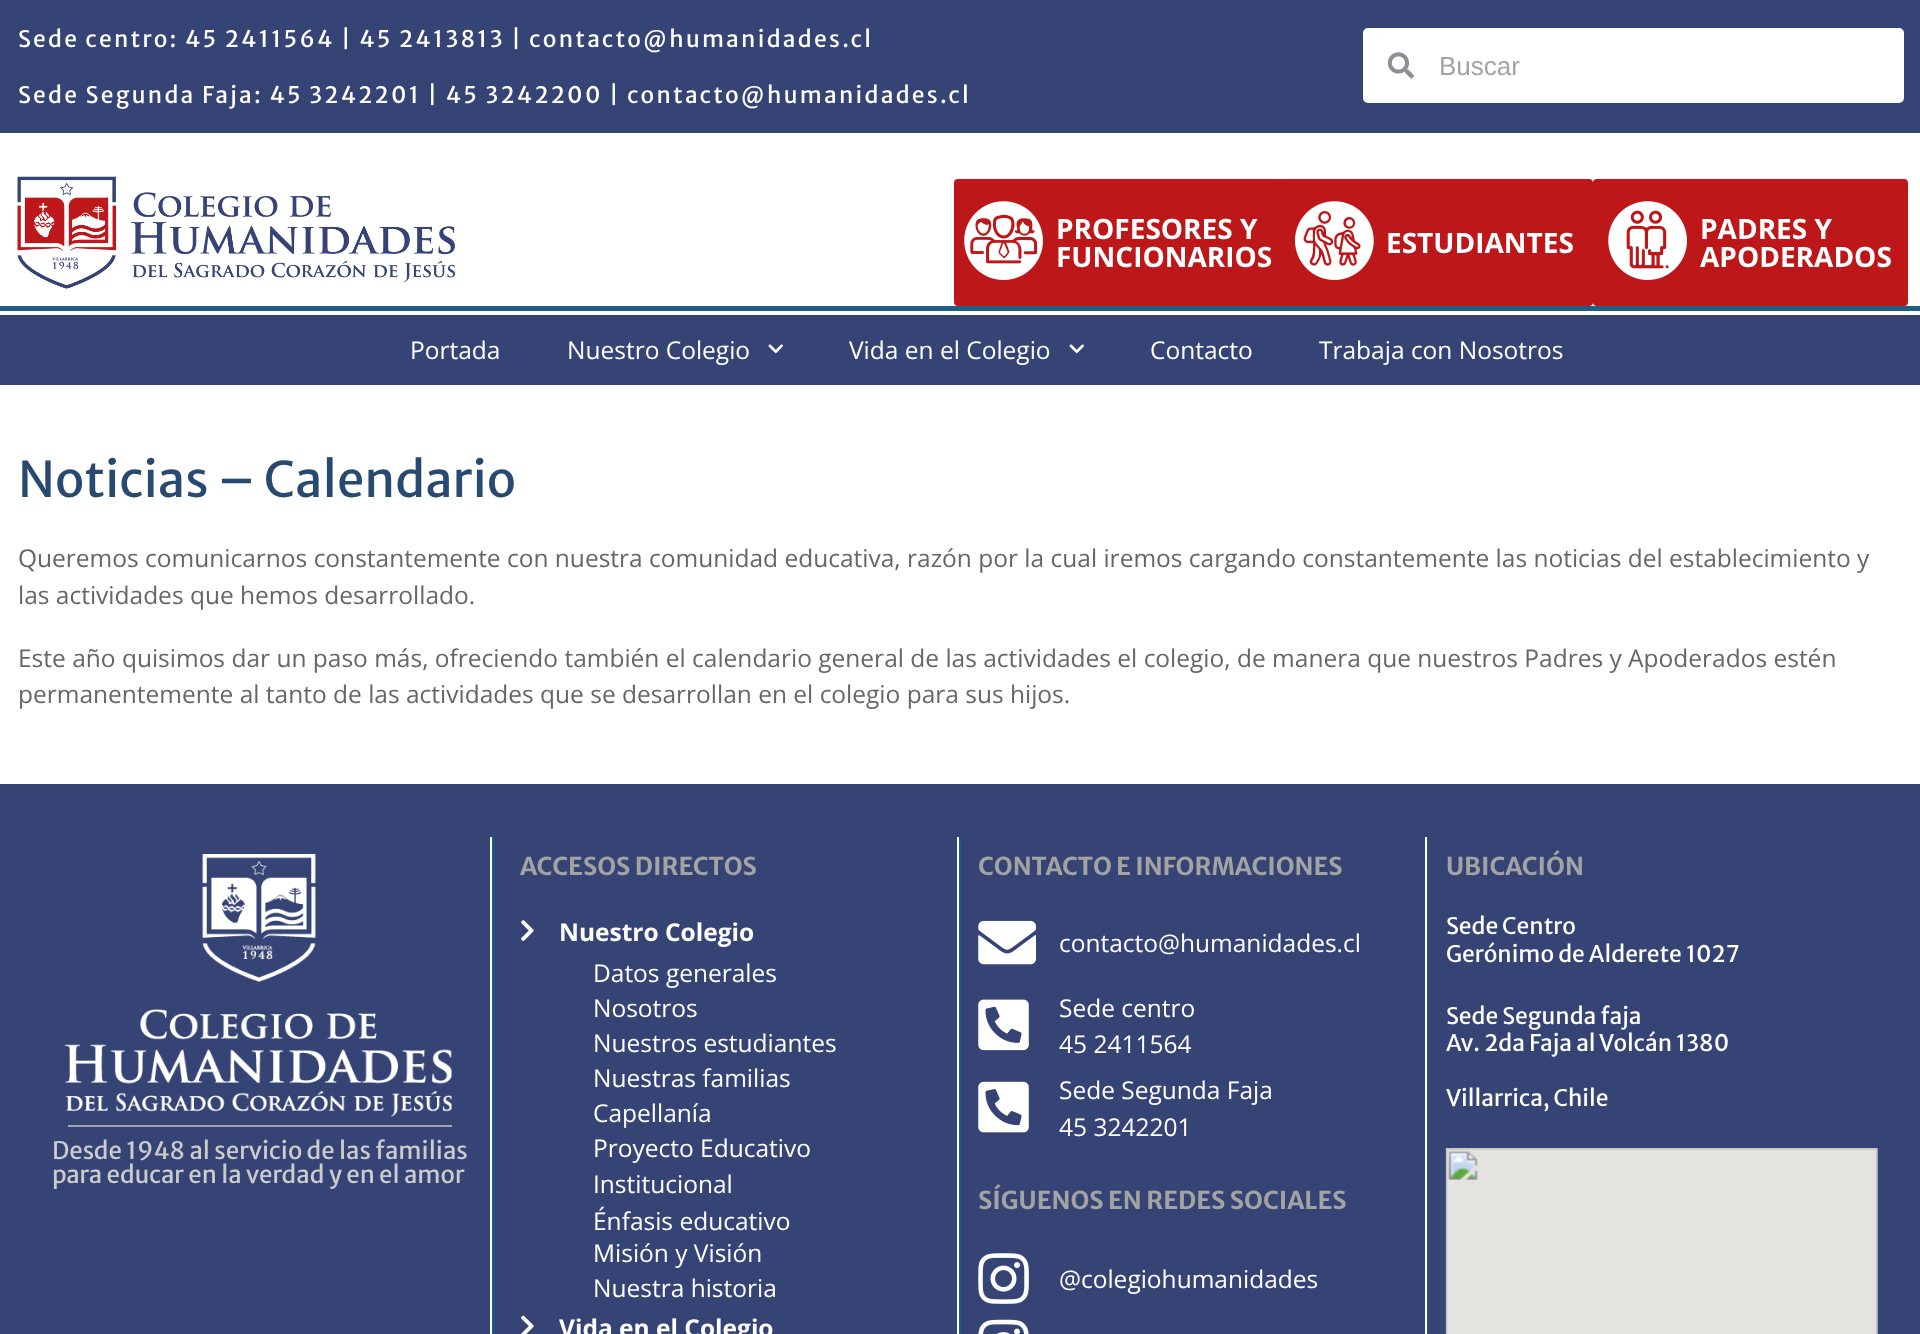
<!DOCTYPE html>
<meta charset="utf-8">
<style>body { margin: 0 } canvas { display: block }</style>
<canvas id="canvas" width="1920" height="1334"></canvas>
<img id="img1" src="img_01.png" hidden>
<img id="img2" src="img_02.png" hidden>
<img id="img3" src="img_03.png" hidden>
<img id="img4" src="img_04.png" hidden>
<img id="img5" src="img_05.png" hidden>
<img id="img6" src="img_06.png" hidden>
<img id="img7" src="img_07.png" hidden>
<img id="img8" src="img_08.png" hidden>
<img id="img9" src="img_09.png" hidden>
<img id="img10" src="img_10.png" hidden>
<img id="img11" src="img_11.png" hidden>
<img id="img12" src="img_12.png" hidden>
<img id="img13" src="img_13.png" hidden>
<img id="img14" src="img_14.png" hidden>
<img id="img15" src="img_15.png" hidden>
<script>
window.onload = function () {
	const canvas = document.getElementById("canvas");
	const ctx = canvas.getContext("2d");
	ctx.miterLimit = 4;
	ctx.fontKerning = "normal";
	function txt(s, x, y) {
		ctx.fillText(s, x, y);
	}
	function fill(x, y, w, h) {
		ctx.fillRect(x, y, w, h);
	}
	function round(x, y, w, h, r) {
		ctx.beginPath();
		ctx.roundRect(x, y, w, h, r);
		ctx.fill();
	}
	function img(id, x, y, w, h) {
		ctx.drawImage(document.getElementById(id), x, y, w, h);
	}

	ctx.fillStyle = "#FFFFFF";
	fill(0, 0, 1920, 1334);
	ctx.fillStyle = "#354475";
	fill(0, 0, 1920, 133);
	ctx.fillStyle = "#FFFFFF";
	round(1363, 28, 541, 75, 5);
	img("img1", 1387, 52, 27, 27);
	ctx.fillStyle = "#205F84";
	fill(0, 306, 1920, 5);
	img("img2", 17, 176, 438, 113);
	ctx.fillStyle = "#BD171A";
	round(954, 179, 329, 127, 4);
	img("img3", 964, 201, 79, 79);
	round(1278, 179, 315, 127, 4);
	img("img4", 1295, 201, 79, 79);
	round(1593, 179, 315, 127, 4);
	img("img5", 1608, 201, 79, 79);
	ctx.fillStyle = "#354475";
	fill(0, 315, 1920, 70);
	img("img6", 768, 344, 15, 10);
	img("img6", 1069, 344, 15, 10);
	fill(0, 784, 1920, 550);
	ctx.fillStyle = "#155F84";
	fill(492, 837, 2, 497);
	ctx.fillStyle = "#FFFFFF";
	fill(490, 837, 2, 497);
	img("img7", 64, 854, 388, 263);
	ctx.fillStyle = "#A5A4A4";
	fill(68, 1125, 384, 2);
	ctx.fillStyle = "#155F84";
	fill(959, 837, 2, 497);
	ctx.fillStyle = "#FFFFFF";
	fill(957, 837, 2, 497);
	img("img8", 521, 920, 13, 21);
	img("img9", 521, 1315, 13, 19);
	ctx.fillStyle = "#155F84";
	fill(1427, 837, 1, 497);
	ctx.fillStyle = "#FFFFFF";
	fill(1425, 837, 2, 497);
	img("img10", 978, 920, 58, 45);
	img("img11", 978, 999, 51, 52);
	img("img12", 978, 1081, 51, 52);
	img("img13", 978, 1253, 51, 51);
	img("img14", 978, 1319, 51, 15);
	img("img15", 1445, 1148, 433, 186);
	ctx.letterSpacing = "2.27px";
	ctx.font = "22.75px Merriweather Sans";
	txt("Sede centro: 45 2411564 | 45 2413813 | contacto@humanidades.cl", 18, 47);
	txt("Sede Segunda Faja: 45 3242201 | 45 3242200 | contacto@humanidades.cl", 18, 103);
	ctx.letterSpacing = "0px";
	ctx.font = "26px Liberation Sans";
	ctx.fillStyle = "#A3A3A3";
	txt("Buscar", 1439, 75);
	ctx.font = "bold 28px Open Sans";
	ctx.fillStyle = "#FFFFFF";
	txt("PROFESORES Y", 1056, 239);
	txt("FUNCIONARIOS", 1056, 267);
	txt("ESTUDIANTES", 1386, 253);
	txt("PADRES Y", 1700, 239);
	txt("APODERADOS", 1700, 267);
	ctx.font = "24.5px Open Sans";
	txt("Portada", 410, 359);
	txt("Nuestro Colegio", 567, 359);
	txt("Vida en el Colegio", 849, 359);
	txt("Contacto", 1150, 359);
	txt("Trabaja con Nosotros", 1319, 359);
	ctx.font = "49px Merriweather Sans";
	ctx.fillStyle = "#294A70";
	txt("Noticias – Calendario", 18, 497);
	ctx.font = "24.5px Open Sans";
	ctx.fillStyle = "#666666";
	txt("Queremos comunicarnos constantemente con nuestra comunidad educativa, razón por la cual iremos cargando constantemente las noticias del establecimiento y", 18, 567);
	txt("las actividades que hemos desarrollado.", 18, 604);
	txt("Este año quisimos dar un paso más, ofreciendo también el calendario general de las actividades el colegio, de manera que nuestros Padres y Apoderados estén", 18, 667);
	txt("permanentemente al tanto de las actividades que se desarrollan en el colegio para sus hijos.", 18, 703);
	ctx.font = "24px Merriweather Sans";
	ctx.fillStyle = "#CCCCCC";
	txt("Desde 1948 al servicio de las familias", 52, 1159);
	txt("para educar en la verdad y en el amor", 52, 1183);
	ctx.font = "bold 24.5px Merriweather Sans";
	ctx.fillStyle = "#A3A3A3";
	txt("ACCESOS DIRECTOS", 520, 875);
	ctx.font = "bold 24.5px Open Sans";
	ctx.fillStyle = "#FFFFFF";
	txt("Nuestro Colegio", 559, 941);
	ctx.font = "24.5px Open Sans";
	txt("Datos generales", 593, 982);
	txt("Nosotros", 593, 1017);
	txt("Nuestros estudiantes", 593, 1052);
	txt("Nuestras familias", 593, 1087);
	txt("Capellanía", 593, 1122);
	txt("Proyecto Educativo", 593, 1157);
	txt("Institucional", 593, 1193);
	txt("Énfasis educativo", 593, 1230);
	txt("Misión y Visión", 593, 1262);
	txt("Nuestra historia", 593, 1297);
	ctx.font = "bold 24.5px Open Sans";
	txt("Vida en el Colegio", 559, 1337);
	ctx.font = "bold 24.5px Merriweather Sans";
	ctx.fillStyle = "#A3A3A3";
	txt("CONTACTO E INFORMACIONES", 978, 875);
	ctx.font = "24.5px Open Sans";
	ctx.fillStyle = "#FFFFFF";
	txt("contacto@humanidades.cl", 1059, 952);
	txt("Sede centro", 1059, 1017);
	txt("45 2411564", 1059, 1053);
	txt("Sede Segunda Faja", 1059, 1099);
	txt("45 3242201", 1059, 1136);
	ctx.font = "bold 24.5px Merriweather Sans";
	ctx.fillStyle = "#A3A3A3";
	txt("SÍGUENOS EN REDES SOCIALES", 978, 1209);
	ctx.font = "24.5px Open Sans";
	ctx.fillStyle = "#FFFFFF";
	txt("@colegiohumanidades", 1059, 1288);
	ctx.font = "bold 24.5px Merriweather Sans";
	ctx.fillStyle = "#A3A3A3";
	txt("UBICACIÓN", 1446, 875);
	ctx.font = "22.75px Merriweather Sans";
	ctx.fillStyle = "#FFFFFF";
	txt("Sede Centro", 1446, 934);
	txt("Gerónimo de Alderete 1027", 1446, 962);
	txt("Sede Segunda faja", 1446, 1024);
	txt("Av. 2da Faja al Volcán 1380", 1446, 1051);
	txt("Villarrica, Chile", 1446, 1106);
};
</script>
